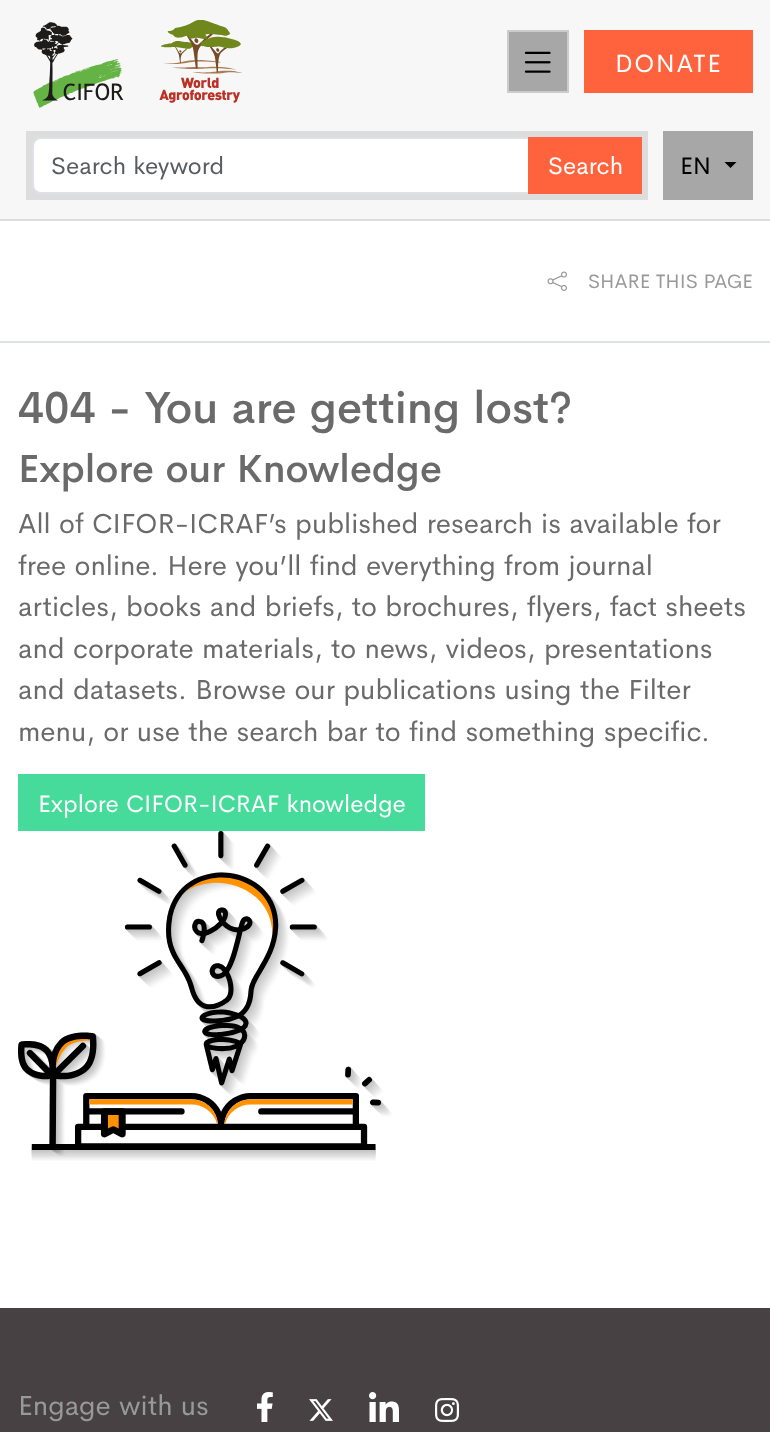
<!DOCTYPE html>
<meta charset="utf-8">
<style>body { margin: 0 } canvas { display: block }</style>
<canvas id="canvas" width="770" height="1432"></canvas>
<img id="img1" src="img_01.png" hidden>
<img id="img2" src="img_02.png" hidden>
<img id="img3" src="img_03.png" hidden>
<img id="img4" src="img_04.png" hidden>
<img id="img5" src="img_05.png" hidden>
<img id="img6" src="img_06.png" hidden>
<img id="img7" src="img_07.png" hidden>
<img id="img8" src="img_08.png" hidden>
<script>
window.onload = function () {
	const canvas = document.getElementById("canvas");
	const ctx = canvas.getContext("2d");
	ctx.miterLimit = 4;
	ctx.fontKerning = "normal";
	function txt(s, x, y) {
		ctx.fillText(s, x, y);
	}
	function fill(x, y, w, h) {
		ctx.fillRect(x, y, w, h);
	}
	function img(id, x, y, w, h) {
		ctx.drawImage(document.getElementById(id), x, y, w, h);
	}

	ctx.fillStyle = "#FFFFFF";
	fill(0, 0, 770, 1432);
	ctx.fillStyle = "#F7F7F7";
	fill(0, 0, 770, 219);
	ctx.fillStyle = "#DDDDDD";
	fill(0, 219, 770, 2);
	img("img1", 33, 20, 209, 88);
	ctx.fillStyle = "#A7A7A7";
	ctx.beginPath();
	ctx.rect(508, 31, 60, 61);
	ctx.fill();
	ctx.strokeStyle = "#CCCCCC";
	ctx.lineWidth = 2;
	ctx.stroke();
	img("img2", 524, 51, 27, 22);
	ctx.fillStyle = "#FF633D";
	fill(584, 30, 169, 63);
	ctx.fillStyle = "#DDDDDD";
	fill(26, 131, 622, 69);
	ctx.fillStyle = "#FFFFFF";
	ctx.beginPath();
	ctx.roundRect(33, 138, 496, 55, [8, 0, 0, 8]);
	ctx.fill();
	ctx.strokeStyle = "#DEE2E6";
	ctx.stroke();
	ctx.fillStyle = "#FF633D";
	fill(528, 137, 114, 57);
	ctx.fillStyle = "#A7A7A7";
	fill(663, 131, 90, 69);
	ctx.fillStyle = "#000000";
	ctx.beginPath();
	ctx.moveTo(724.5, 162);
	ctx.lineTo(736.5, 162);
	ctx.lineTo(730.5, 168);
	ctx.closePath();
	ctx.fill();
	ctx.fillStyle = "#DEE2E6";
	fill(0, 341, 770, 2);
	img("img3", 547, 271, 20, 20);
	ctx.fillStyle = "#46DB9B";
	fill(18, 774, 407, 57);
	img("img4", 18, 831, 374, 330);
	ctx.fillStyle = "#474143";
	fill(0, 1308, 770, 124);
	img("img5", 257, 1392, 16, 30);
	img("img6", 309, 1399, 24, 22);
	img("img7", 369, 1392, 30, 30);
	img("img8", 435, 1398, 24, 24);
	ctx.letterSpacing = "1.5px";
	ctx.font = "25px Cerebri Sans";
	ctx.fillStyle = "#FFFFFF";
	txt("DONATE", 615, 72);
	ctx.letterSpacing = "0px";
	ctx.font = "24px Cerebri Sans";
	ctx.fillStyle = "#595C5F";
	txt("Search keyword", 51, 174);
	ctx.fillStyle = "#FFFFFF";
	txt("Search", 548, 174);
	ctx.fillStyle = "#000000";
	txt("EN", 680, 174);
	ctx.font = "19.5px Cerebri Sans";
	ctx.fillStyle = "#999999";
	txt("SHARE THIS PAGE", 588, 288);
	ctx.font = "500 44.5px Cerebri Sans";
	ctx.fillStyle = "#6A6A6A";
	txt("404 - You are getting lost?", 18, 423);
	ctx.font = "500 38.75px Cerebri Sans";
	txt("Explore our Knowledge", 18, 482);
	ctx.font = "27.6px Cerebri Sans";
	txt("All of CIFOR-ICRAF’s published research is available for", 18, 533);
	txt("free online. Here you’ll find everything from journal", 18, 575);
	txt("articles, books and briefs, to brochures, flyers, fact sheets", 18, 616);
	txt("and corporate materials, to news, videos, presentations", 18, 658);
	txt("and datasets. Browse our publications using the Filter", 18, 699);
	txt("menu, or use the search bar to find something specific.", 18, 741);
	ctx.font = "24px Cerebri Sans";
	ctx.fillStyle = "#FFFFFF";
	txt("Explore CIFOR-ICRAF knowledge", 38, 812);
	ctx.font = "27.6px Cerebri Sans";
	ctx.fillStyle = "#999999";
	txt("Engage with us", 18, 1415);
};
</script>
